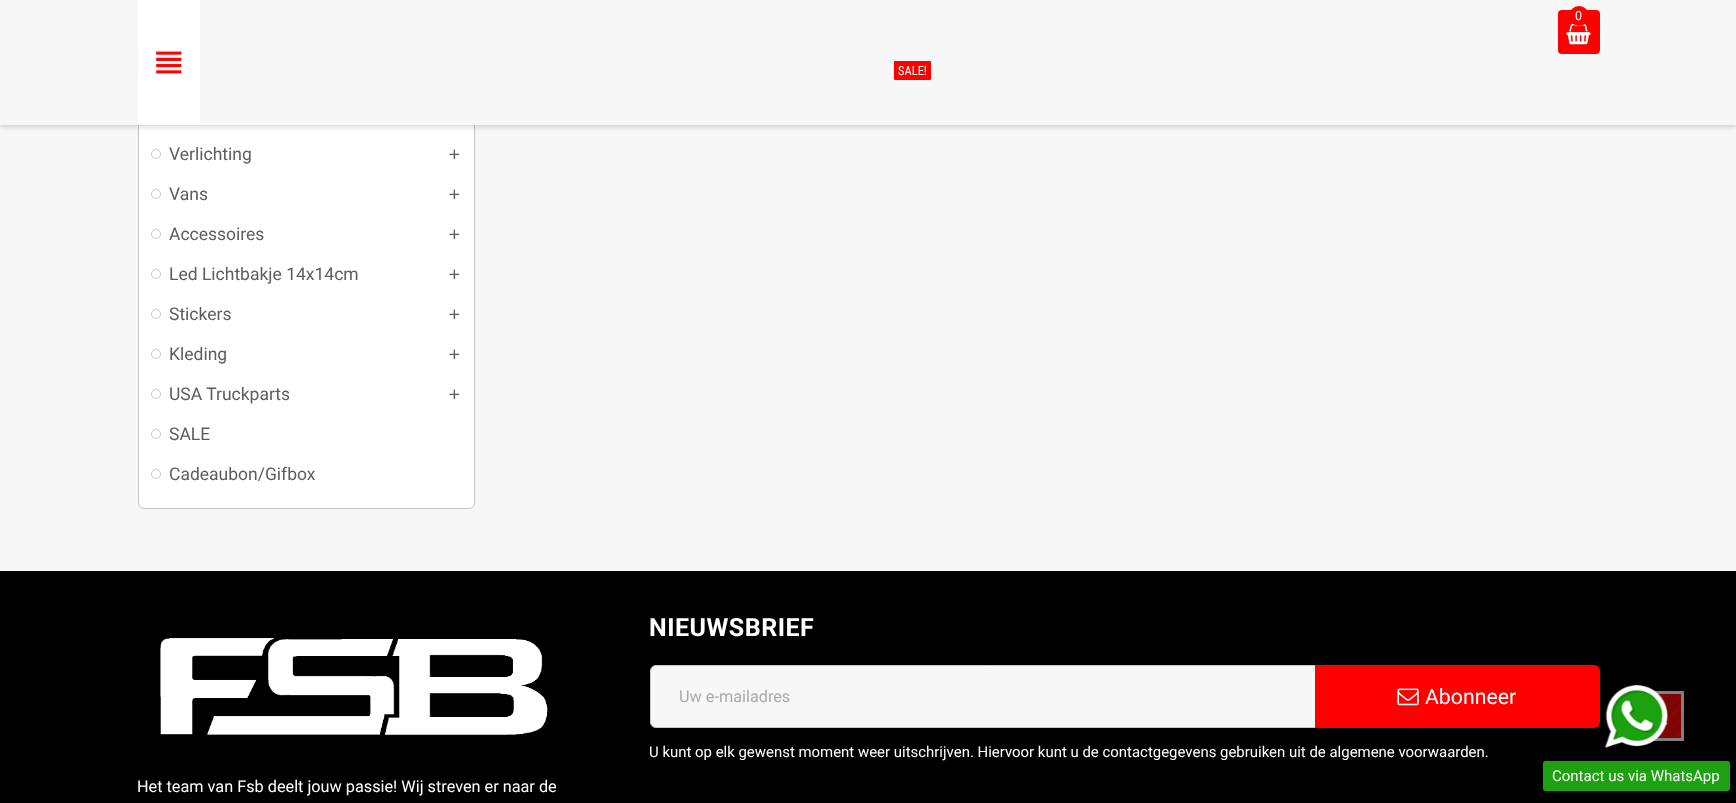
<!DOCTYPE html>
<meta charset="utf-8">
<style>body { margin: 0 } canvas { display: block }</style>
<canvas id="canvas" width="1736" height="803"></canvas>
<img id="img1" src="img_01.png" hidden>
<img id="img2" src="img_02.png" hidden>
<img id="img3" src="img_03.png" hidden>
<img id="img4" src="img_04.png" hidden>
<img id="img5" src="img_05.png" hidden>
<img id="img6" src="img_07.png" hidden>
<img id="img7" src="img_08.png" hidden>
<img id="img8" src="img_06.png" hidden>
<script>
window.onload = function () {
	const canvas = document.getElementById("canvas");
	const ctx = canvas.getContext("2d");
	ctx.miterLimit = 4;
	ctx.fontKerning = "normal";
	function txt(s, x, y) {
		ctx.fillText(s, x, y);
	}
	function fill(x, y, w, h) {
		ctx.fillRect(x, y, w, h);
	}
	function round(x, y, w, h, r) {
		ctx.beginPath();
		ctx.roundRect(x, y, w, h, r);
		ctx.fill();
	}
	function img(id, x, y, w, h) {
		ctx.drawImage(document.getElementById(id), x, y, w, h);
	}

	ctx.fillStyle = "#F7F7F7";
	fill(0, 0, 1736, 803);
	ctx.fillStyle = "#FFFFFF";
	ctx.beginPath();
	ctx.roundRect(138.5, -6.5, 336, 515, 5.5);
	ctx.fill();
	ctx.strokeStyle = "#C7C7C7";
	ctx.stroke();
	ctx.fillStyle = "rgba(0, 0, 0, 0.2)";
	ctx.filter = "blur(3px)";
	ctx.beginPath();
	ctx.rect(0, 1, 1736, 125);
	ctx.fill();
	ctx.filter = "none";
	ctx.fillStyle = "#F7F7F7";
	fill(0, 0, 1736, 125);
	ctx.fillStyle = "#FFFFFF";
	fill(138, 0, 62, 125);
	img("img1", 156, 51, 26, 23);
	ctx.fillStyle = "#FF0000";
	round(1558, 10, 42, 44, 4);
	img("img2", 1566, 23, 25, 22);
	ctx.beginPath();
	ctx.arc(1579, 16, 10, 0, Math.PI * 2);
	ctx.fill();
	round(894, 61, 37, 19, 1);
	ctx.beginPath();
	ctx.arc(156, 154, 4.5, 0, Math.PI * 2);
	ctx.stroke();
	img("img3", 449, 149, 11, 11);
	ctx.beginPath();
	ctx.arc(156, 194, 4.5, 0, Math.PI * 2);
	ctx.stroke();
	img("img3", 449, 189, 11, 11);
	ctx.beginPath();
	ctx.arc(156, 234, 4.5, 0, Math.PI * 2);
	ctx.stroke();
	img("img3", 449, 229, 11, 11);
	ctx.beginPath();
	ctx.arc(156, 274, 4.5, 0, Math.PI * 2);
	ctx.stroke();
	img("img3", 449, 269, 11, 11);
	ctx.beginPath();
	ctx.arc(156, 314, 4.5, 0, Math.PI * 2);
	ctx.stroke();
	img("img3", 449, 309, 11, 11);
	ctx.beginPath();
	ctx.arc(156, 354, 4.5, 0, Math.PI * 2);
	ctx.stroke();
	img("img3", 449, 349, 11, 11);
	ctx.beginPath();
	ctx.arc(156, 394, 4.5, 0, Math.PI * 2);
	ctx.stroke();
	img("img3", 449, 389, 11, 11);
	ctx.beginPath();
	ctx.arc(156, 434, 4.5, 0, Math.PI * 2);
	ctx.stroke();
	ctx.beginPath();
	ctx.arc(156, 474, 4.5, 0, Math.PI * 2);
	ctx.stroke();
	ctx.fillStyle = "#000000";
	fill(0, 571, 1736, 232);
	ctx.fillStyle = "#F7F7F7";
	ctx.beginPath();
	ctx.roundRect(650.5, 665.5, 665, 62, [5.5, 0, 0, 5.5]);
	ctx.fill();
	ctx.stroke();
	ctx.fillStyle = "#FF0000";
	ctx.beginPath();
	ctx.roundRect(1315, 665, 285, 63, [0, 6, 6, 0]);
	ctx.fill();
	img("img4", 1397, 688, 22, 18);
	img("img5", 160, 638, 388, 98);
	ctx.fillStyle = "#800000";
	fill(1657, 694, 24, 44);
	img("img6", 1657, 694, 24, 44);
	ctx.strokeStyle = "#808080";
	ctx.lineWidth = 3;
	ctx.strokeRect(1635.5, 692.5, 47, 47);
	img("img7", 1665, 715, 3, 10);
	img("img8", 1604, 685, 64, 63);
	ctx.fillStyle = "#1DA110";
	round(1543, 761, 187, 30, 2.5);
	ctx.font = "12.5px Roboto";
	ctx.fillStyle = "#FFFFFF";
	txt("0", 1575, 20);
	ctx.font = "12.5px Roboto Condensed";
	txt("SALE!", 898, 75);
	ctx.font = "17.5px Roboto";
	ctx.fillStyle = "#5D5D5D";
	txt("Verlichting", 169, 160);
	txt("Vans", 169, 200);
	txt("Accessoires", 169, 240);
	txt("Led Lichtbakje 14x14cm", 169, 280);
	txt("Stickers", 169, 320);
	txt("Kleding", 169, 360);
	txt("USA Truckparts", 169, 400);
	txt("SALE", 169, 440);
	txt("Cadeaubon/Gifbox", 169, 480);
	ctx.letterSpacing = "0.5px";
	ctx.font = "bold 25px Roboto";
	ctx.fillStyle = "#FFFFFF";
	txt("NIEUWSBRIEF", 649, 636);
	ctx.letterSpacing = "0px";
	ctx.font = "16.25px Roboto";
	ctx.fillStyle = "#AAAAAA";
	txt("Uw e-mailadres", 679, 702);
	ctx.font = "21.25px Roboto";
	ctx.fillStyle = "#FFFFFF";
	txt("Abonneer", 1425, 704);
	ctx.font = "14.95px Roboto";
	txt("U kunt op elk gewenst moment weer uitschrijven. Hiervoor kunt u de contactgegevens gebruiken uit de algemene voorwaarden.", 649, 757);
	ctx.font = "16.25px Roboto";
	txt("Het team van Fsb deelt jouw passie! Wij streven er naar de", 137, 792);
	ctx.font = "15px Roboto";
	txt("Contact us via WhatsApp", 1552, 781);
};
</script>
